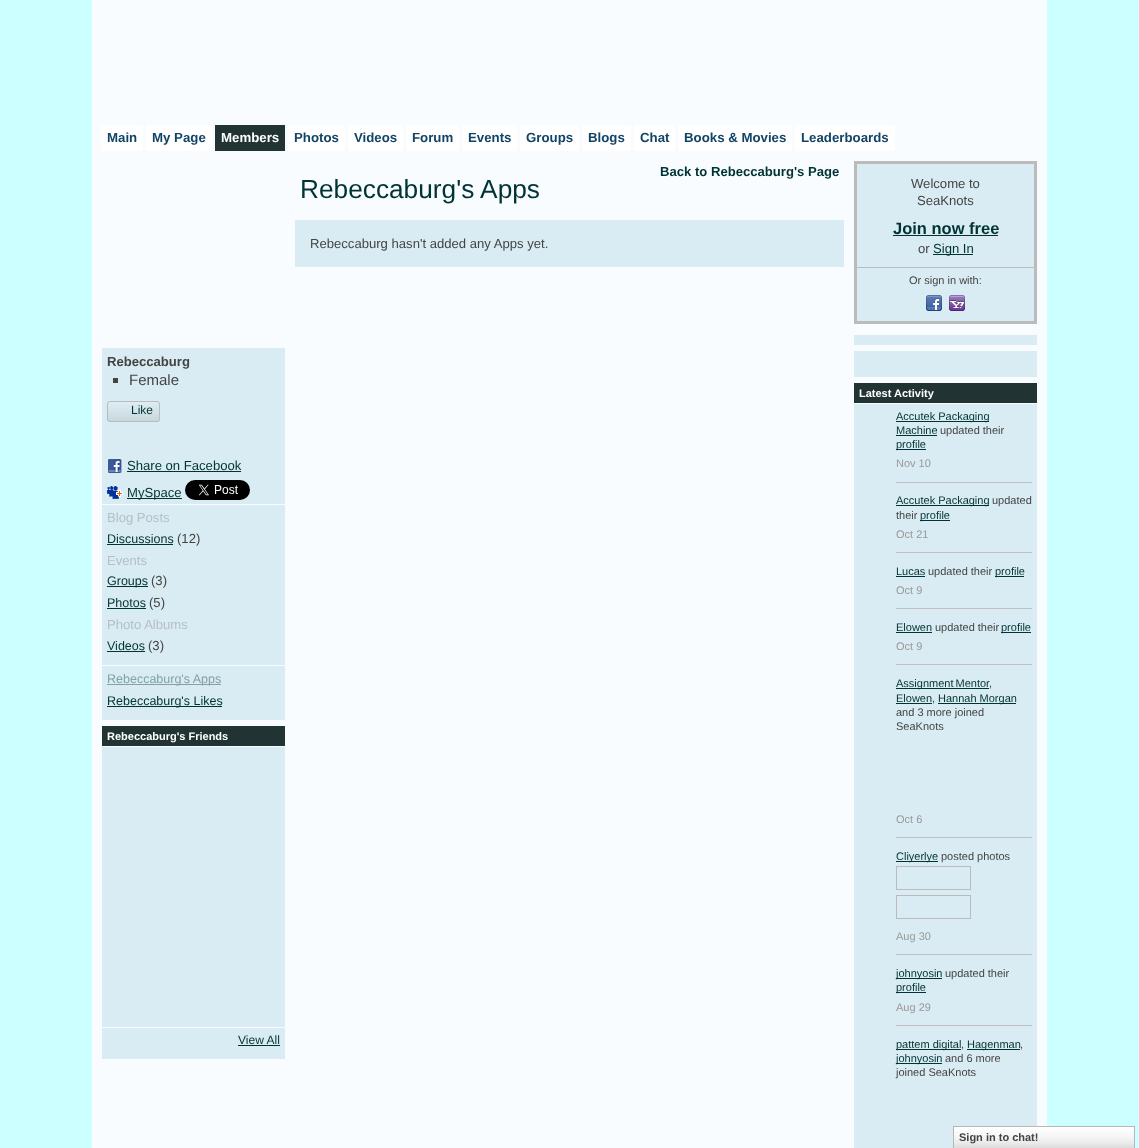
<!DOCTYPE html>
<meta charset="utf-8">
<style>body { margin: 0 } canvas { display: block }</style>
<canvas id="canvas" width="1139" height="1148"></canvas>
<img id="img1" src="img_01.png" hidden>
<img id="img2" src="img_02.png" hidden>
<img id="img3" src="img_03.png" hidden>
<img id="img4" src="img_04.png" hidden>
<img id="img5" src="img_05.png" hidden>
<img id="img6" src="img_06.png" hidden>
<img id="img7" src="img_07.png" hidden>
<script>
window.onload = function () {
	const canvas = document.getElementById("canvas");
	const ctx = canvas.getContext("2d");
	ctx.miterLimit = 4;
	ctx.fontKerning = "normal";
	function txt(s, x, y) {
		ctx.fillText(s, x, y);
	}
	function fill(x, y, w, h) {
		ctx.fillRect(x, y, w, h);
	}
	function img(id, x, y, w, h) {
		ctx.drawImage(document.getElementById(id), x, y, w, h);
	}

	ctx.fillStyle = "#CCFFFF";
	fill(0, 0, 1139, 1148);
	ctx.fillStyle = "#F8FCFF";
	fill(92, 0, 955, 1148);
	ctx.fillStyle = "#FFFFFF";
	fill(101, 125, 42, 26);
	fill(146, 125, 66, 26);
	ctx.fillStyle = "#223333";
	fill(215, 125, 70, 26);
	ctx.fillStyle = "#FFFFFF";
	fill(288, 125, 57, 26);
	fill(348, 125, 55, 26);
	fill(406, 125, 53, 26);
	fill(462, 125, 55, 26);
	fill(520, 125, 59, 26);
	fill(582, 125, 49, 26);
	fill(634, 125, 41, 26);
	fill(678, 125, 114, 26);
	fill(795, 125, 100, 26);
	ctx.fillStyle = "#D9ECF3";
	fill(295, 220, 549, 47);
	fill(102, 348, 183, 156);
	ctx.fillStyle = "#444444";
	fill(113, 378, 5, 5);
	img("img1", 107, 402, 53, 20);
	ctx.beginPath();
	ctx.roundRect(107.5, 401.5, 52, 20, 2.5);
	ctx.strokeStyle = "#BBBBBB";
	ctx.stroke();
	img("img2", 108, 459, 14, 14);
	ctx.fillStyle = "#003333";
	fill(127, 471, 114, 1);
	img("img3", 107, 486, 16, 13);
	fill(127, 498, 55, 1);
	img("img4", 185, 480, 65, 20);
	ctx.fillStyle = "#D9ECF3";
	fill(102, 505, 183, 160);
	ctx.fillStyle = "#003333";
	fill(107, 544, 66, 1);
	fill(107, 586, 41, 1);
	fill(107, 608, 39, 1);
	fill(107, 651, 38, 1);
	ctx.fillStyle = "#D9ECF3";
	fill(102, 666, 183, 54);
	ctx.fillStyle = "#82A2A6";
	fill(107, 684, 114, 1);
	ctx.fillStyle = "#003333";
	fill(107, 706, 115, 1);
	ctx.fillStyle = "#223333";
	fill(102, 726, 183, 20);
	ctx.fillStyle = "#D9ECF3";
	fill(102, 747, 183, 280);
	fill(102, 1028, 183, 31);
	ctx.fillStyle = "#003333";
	fill(238, 1045, 42, 1);
	ctx.fillStyle = "#D9ECF3";
	ctx.beginPath();
	ctx.rect(855.5, 162.5, 180, 160);
	ctx.fill();
	ctx.lineWidth = 3;
	ctx.stroke();
	ctx.fillStyle = "#003333";
	fill(893, 235, 105, 1);
	fill(933, 254, 40, 1);
	ctx.fillStyle = "#BBBBBB";
	fill(857, 267, 177, 1);
	img("img5", 926, 295, 16, 16);
	img("img6", 949, 295, 16, 16);
	ctx.fillStyle = "#D9ECF3";
	fill(854, 335, 183, 10);
	fill(854, 351, 183, 26);
	ctx.fillStyle = "#223333";
	fill(854, 383, 183, 20);
	ctx.fillStyle = "#D9ECF3";
	fill(854, 404, 183, 744);
	ctx.fillStyle = "#C0C0C0";
	fill(896, 482, 136, 1);
	ctx.fillStyle = "#003333";
	fill(896, 421, 93, 1);
	fill(896, 435, 41, 1);
	fill(896, 449, 30, 1);
	ctx.fillStyle = "#C0C0C0";
	fill(896, 552, 136, 1);
	ctx.fillStyle = "#003333";
	fill(896, 505, 93, 1);
	fill(920, 520, 30, 1);
	ctx.fillStyle = "#C0C0C0";
	fill(896, 608, 136, 1);
	ctx.fillStyle = "#003333";
	fill(896, 576, 29, 1);
	fill(995, 576, 29, 1);
	ctx.fillStyle = "#C0C0C0";
	fill(896, 664, 136, 1);
	ctx.fillStyle = "#003333";
	fill(896, 632, 36, 1);
	fill(1001, 632, 30, 1);
	ctx.fillStyle = "#C0C0C0";
	fill(896, 837, 136, 1);
	ctx.fillStyle = "#003333";
	fill(896, 688, 93, 1);
	fill(896, 703, 36, 1);
	fill(938, 703, 78, 1);
	ctx.fillStyle = "#C0C0C0";
	fill(896, 954, 136, 1);
	ctx.fillStyle = "#003333";
	fill(896, 861, 42, 1);
	ctx.lineWidth = 1;
	ctx.strokeRect(896.5, 866.5, 74, 23);
	ctx.strokeRect(896.5, 895.5, 74, 23);
	ctx.fillStyle = "#C0C0C0";
	fill(896, 1025, 136, 1);
	ctx.fillStyle = "#003333";
	fill(896, 978, 46, 1);
	fill(896, 992, 30, 1);
	fill(896, 1049, 65, 1);
	fill(967, 1049, 53, 1);
	fill(896, 1063, 46, 1);
	img("img7", 954, 1127, 180, 21);
	ctx.strokeStyle = "#B7B7B7";
	ctx.strokeRect(953.5, 1126.5, 181, 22);
	ctx.font = "bold 13.25px Liberation Sans";
	ctx.fillStyle = "#114466";
	txt("Main", 107, 142);
	txt("My Page", 152, 142);
	ctx.fillStyle = "#FFFFFF";
	txt("Members", 221, 142);
	ctx.fillStyle = "#114466";
	txt("Photos", 294, 142);
	txt("Videos", 354, 142);
	txt("Forum", 412, 142);
	txt("Events", 468, 142);
	txt("Groups", 526, 142);
	txt("Blogs", 588, 142);
	txt("Chat", 640, 142);
	txt("Books & Movies", 684, 142);
	txt("Leaderboards", 801, 142);
	ctx.font = "bold 13.1px Liberation Sans";
	ctx.fillStyle = "#003333";
	txt("Back to Rebeccaburg's Page", 660, 176);
	ctx.font = "26.25px Liberation Sans";
	txt("Rebeccaburg's Apps", 300, 198);
	ctx.font = "13.1px Liberation Sans";
	ctx.fillStyle = "#444444";
	txt("Rebeccaburg hasn't added any Apps yet.", 310, 248);
	ctx.font = "bold 13.1px Liberation Sans";
	txt("Rebeccaburg", 107, 366);
	ctx.font = "15px Liberation Sans";
	txt("Female", 129, 385);
	ctx.font = "12px Liberation Sans";
	ctx.fillStyle = "#003333";
	txt("Like", 131, 414);
	ctx.font = "13.1px Liberation Sans";
	txt("Share on Facebook", 127, 470);
	txt("MySpace", 127, 497);
	ctx.fillStyle = "#B5C0C5";
	txt("Blog Posts", 107, 522);
	ctx.font = "12.5px Liberation Sans";
	ctx.fillStyle = "#003333";
	txt("Discussions", 107, 543);
	ctx.font = "13.1px Liberation Sans";
	ctx.fillStyle = "#444444";
	txt("(12)", 177, 543);
	ctx.fillStyle = "#B5C0C5";
	txt("Events", 107, 565);
	ctx.font = "12.5px Liberation Sans";
	ctx.fillStyle = "#003333";
	txt("Groups", 107, 585);
	ctx.font = "13.1px Liberation Sans";
	ctx.fillStyle = "#444444";
	txt("(3)", 151, 585);
	ctx.font = "12.5px Liberation Sans";
	ctx.fillStyle = "#003333";
	txt("Photos", 107, 607);
	ctx.font = "13.1px Liberation Sans";
	ctx.fillStyle = "#444444";
	txt("(5)", 149, 607);
	ctx.fillStyle = "#B5C0C5";
	txt("Photo Albums", 107, 629);
	ctx.font = "12.5px Liberation Sans";
	ctx.fillStyle = "#003333";
	txt("Videos", 107, 650);
	ctx.font = "13.1px Liberation Sans";
	ctx.fillStyle = "#444444";
	txt("(3)", 148, 650);
	ctx.font = "12.5px Liberation Sans";
	ctx.fillStyle = "#82A2A6";
	txt("Rebeccaburg's Apps", 107, 683);
	ctx.fillStyle = "#003333";
	txt("Rebeccaburg's Likes", 107, 705);
	ctx.font = "bold 11px Liberation Sans";
	ctx.fillStyle = "#FFFFFF";
	txt("Rebeccaburg's Friends", 107, 740);
	ctx.font = "12px Liberation Sans";
	ctx.fillStyle = "#003333";
	txt("View All", 238, 1044);
	ctx.font = "13.1px Liberation Sans";
	ctx.fillStyle = "#444444";
	txt("Welcome to", 911, 188);
	txt("SeaKnots", 917, 205);
	ctx.font = "bold 16.5px Liberation Sans";
	ctx.fillStyle = "#003333";
	txt("Join now free", 893, 234);
	ctx.font = "13.1px Liberation Sans";
	ctx.fillStyle = "#444444";
	txt("or", 918, 253);
	ctx.fillStyle = "#003333";
	txt("Sign In", 933, 253);
	ctx.font = "11px Liberation Sans";
	ctx.fillStyle = "#444444";
	txt("Or sign in with:", 909, 284);
	ctx.font = "bold 11px Liberation Sans";
	ctx.fillStyle = "#FFFFFF";
	txt("Latest Activity", 859, 397);
	ctx.font = "11px Liberation Sans";
	ctx.fillStyle = "#003333";
	txt("Accutek Packaging", 896, 420);
	txt("Machine", 896, 434);
	ctx.fillStyle = "#444444";
	txt("updated their", 940, 434);
	ctx.fillStyle = "#003333";
	txt("profile", 896, 448);
	ctx.fillStyle = "#999999";
	txt("Nov 10", 896, 467);
	ctx.fillStyle = "#003333";
	txt("Accutek Packaging", 896, 504);
	ctx.fillStyle = "#444444";
	txt("updated", 992, 504);
	txt("their", 896, 519);
	ctx.fillStyle = "#003333";
	txt("profile", 920, 519);
	ctx.fillStyle = "#999999";
	txt("Oct 21", 896, 538);
	ctx.fillStyle = "#003333";
	txt("Lucas", 896, 575);
	ctx.fillStyle = "#444444";
	txt("updated their", 928, 575);
	ctx.fillStyle = "#003333";
	txt("profile", 995, 575);
	ctx.fillStyle = "#999999";
	txt("Oct 9", 896, 594);
	ctx.fillStyle = "#003333";
	txt("Elowen", 896, 631);
	ctx.fillStyle = "#444444";
	txt("updated their", 935, 631);
	ctx.fillStyle = "#003333";
	txt("profile", 1001, 631);
	ctx.fillStyle = "#999999";
	txt("Oct 9", 896, 650);
	ctx.wordSpacing = "-1px";
	ctx.fillStyle = "#003333";
	txt("Assignment Mentor", 896, 687);
	ctx.wordSpacing = "0px";
	ctx.fillStyle = "#444444";
	txt(",", 989, 687);
	ctx.fillStyle = "#003333";
	txt("Elowen", 896, 702);
	ctx.fillStyle = "#444444";
	txt(",", 932, 702);
	ctx.fillStyle = "#003333";
	txt("Hannah Morgan", 938, 702);
	ctx.fillStyle = "#444444";
	txt("and 3 more joined", 896, 716);
	txt("SeaKnots", 896, 730);
	ctx.fillStyle = "#999999";
	txt("Oct 6", 896, 823);
	ctx.fillStyle = "#003333";
	txt("Cliyerlye", 896, 860);
	ctx.fillStyle = "#444444";
	txt("posted photos", 941, 860);
	ctx.fillStyle = "#999999";
	txt("Aug 30", 896, 940);
	ctx.fillStyle = "#003333";
	txt("johnyosin", 896, 977);
	ctx.fillStyle = "#444444";
	txt("updated their", 945, 977);
	ctx.fillStyle = "#003333";
	txt("profile", 896, 991);
	ctx.fillStyle = "#999999";
	txt("Aug 29", 896, 1011);
	ctx.fillStyle = "#003333";
	txt("pattem digital", 896, 1048);
	ctx.fillStyle = "#444444";
	txt(",", 961, 1048);
	ctx.fillStyle = "#003333";
	txt("Hagenman", 967, 1048);
	ctx.fillStyle = "#444444";
	txt(",", 1020, 1048);
	ctx.fillStyle = "#003333";
	txt("johnyosin", 896, 1062);
	ctx.fillStyle = "#444444";
	txt("and 6 more", 945, 1062);
	txt("joined SeaKnots", 896, 1076);
	ctx.font = "bold 11px Liberation Sans";
	txt("Sign in to chat!", 959, 1141);
};
</script>
